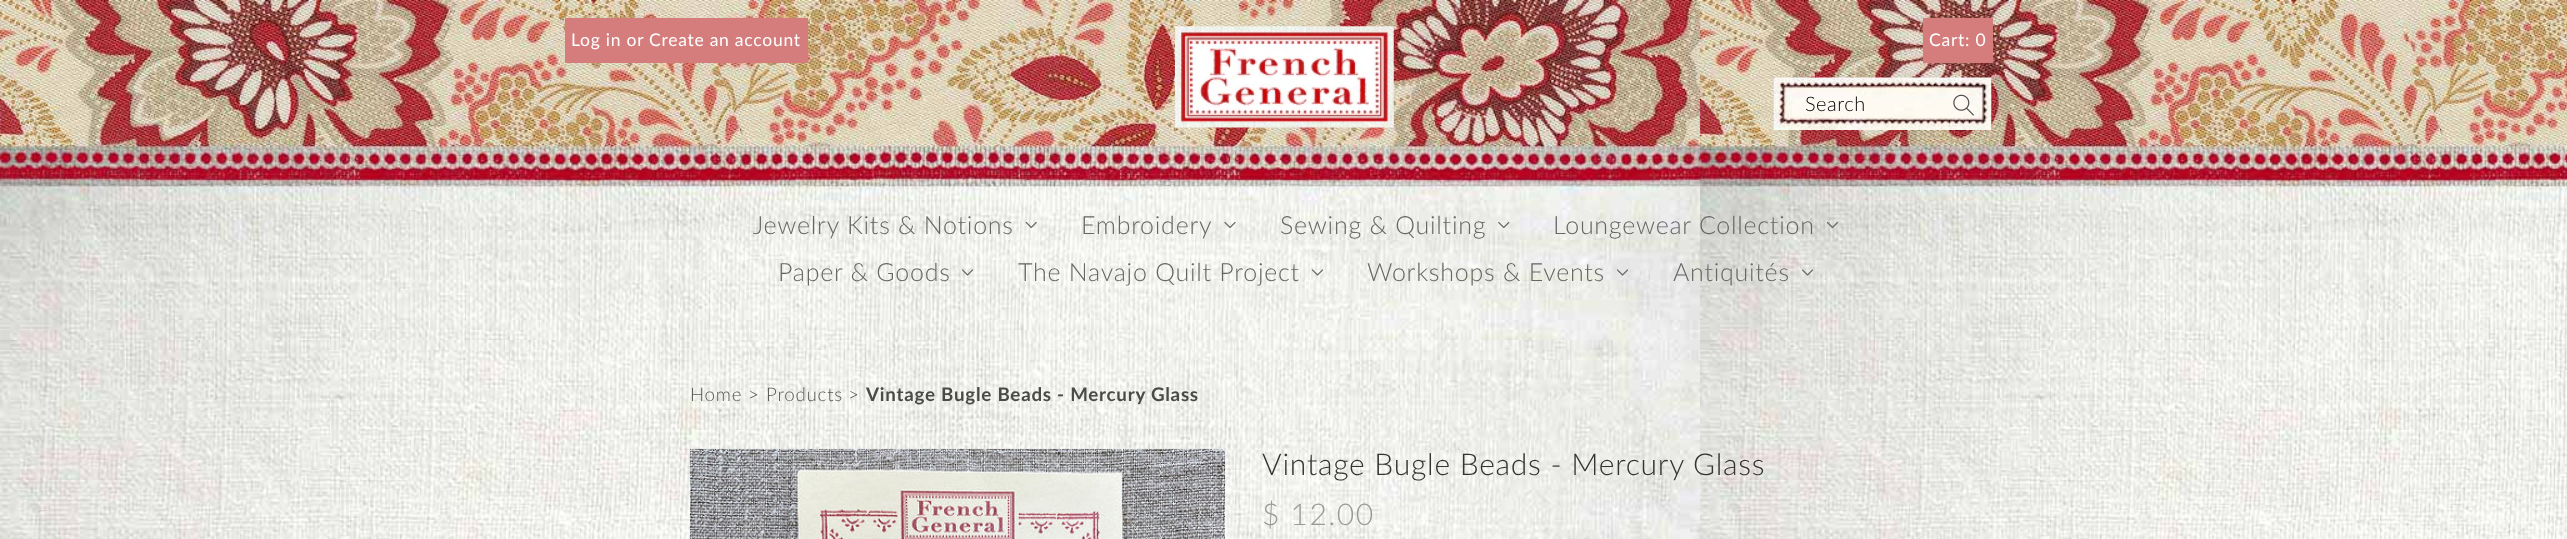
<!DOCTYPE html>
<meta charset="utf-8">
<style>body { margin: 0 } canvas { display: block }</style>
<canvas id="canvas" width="2567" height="539"></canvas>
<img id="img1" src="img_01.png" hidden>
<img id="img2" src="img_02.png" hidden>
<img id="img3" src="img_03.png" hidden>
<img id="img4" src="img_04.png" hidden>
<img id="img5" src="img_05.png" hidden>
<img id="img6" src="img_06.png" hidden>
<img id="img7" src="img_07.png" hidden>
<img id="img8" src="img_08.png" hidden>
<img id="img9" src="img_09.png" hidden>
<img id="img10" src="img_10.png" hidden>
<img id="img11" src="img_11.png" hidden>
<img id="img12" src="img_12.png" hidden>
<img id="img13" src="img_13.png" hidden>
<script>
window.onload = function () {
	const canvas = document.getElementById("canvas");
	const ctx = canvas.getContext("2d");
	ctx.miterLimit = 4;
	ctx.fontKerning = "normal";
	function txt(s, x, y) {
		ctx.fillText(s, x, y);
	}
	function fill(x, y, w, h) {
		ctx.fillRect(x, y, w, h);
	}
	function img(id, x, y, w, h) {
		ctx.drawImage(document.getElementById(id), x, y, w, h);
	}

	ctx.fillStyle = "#FFFFFF";
	fill(0, 0, 2567, 539);
	img("img1", 0, 0, 2567, 539);
	ctx.fillStyle = "#D57C7C";
	fill(565, 18, 243, 45);
	img("img2", 1175, 26, 219, 102);
	fill(1923, 18, 70, 45);
	img("img3", 1773, 77, 219, 53);
	img("img4", 1953, 94, 21, 22);
	img("img5", 1025, 221, 12, 8);
	img("img6", 1224, 222, 12, 6);
	img("img7", 1498, 221, 12, 8);
	img("img8", 1826, 221, 13, 7);
	img("img9", 962, 269, 11, 7);
	img("img10", 1312, 269, 11, 7);
	img("img11", 1617, 269, 11, 7);
	img("img12", 1802, 269, 11, 7);
	img("img13", 690, 448, 535, 91);
	ctx.letterSpacing = "0.75px";
	ctx.font = "17.5px Lato";
	ctx.fillStyle = "#FFFFFF";
	txt("Log in or", 571, 46);
	txt("Create an account", 649, 46);
	txt("Cart: 0", 1929, 46);
	ctx.letterSpacing = "0.5px";
	ctx.font = "300 20px Lato";
	ctx.fillStyle = "#000000";
	txt("Search", 1805, 111);
	ctx.letterSpacing = "0.75px";
	ctx.font = "300 25px Lato";
	ctx.fillStyle = "#666666";
	txt("Jewelry Kits & Notions", 753, 234);
	txt("Embroidery", 1081, 234);
	txt("Sewing & Quilting", 1280, 234);
	txt("Loungewear Collection", 1553, 234);
	txt("Paper & Goods", 778, 281);
	txt("The Navajo Quilt Project", 1018, 281);
	txt("Workshops & Events", 1367, 281);
	txt("Antiquités", 1673, 281);
	ctx.font = "300 18.75px Lato";
	ctx.fillStyle = "#555555";
	txt("Home", 690, 401);
	ctx.fillStyle = "#4A4A49";
	txt(">", 748, 401);
	ctx.fillStyle = "#555555";
	txt("Products", 766, 401);
	ctx.fillStyle = "#4A4A49";
	txt(">", 848, 401);
	ctx.font = "bold 18.75px Lato";
	txt("Vintage Bugle Beads - Mercury Glass", 866, 401);
	ctx.font = "300 30px Lato";
	ctx.fillStyle = "#333333";
	txt("Vintage Bugle Beads - Mercury Glass", 1262, 475);
	ctx.letterSpacing = "1.5px";
	ctx.fillStyle = "#999999";
	txt("$ 12.00", 1262, 525);
};
</script>
